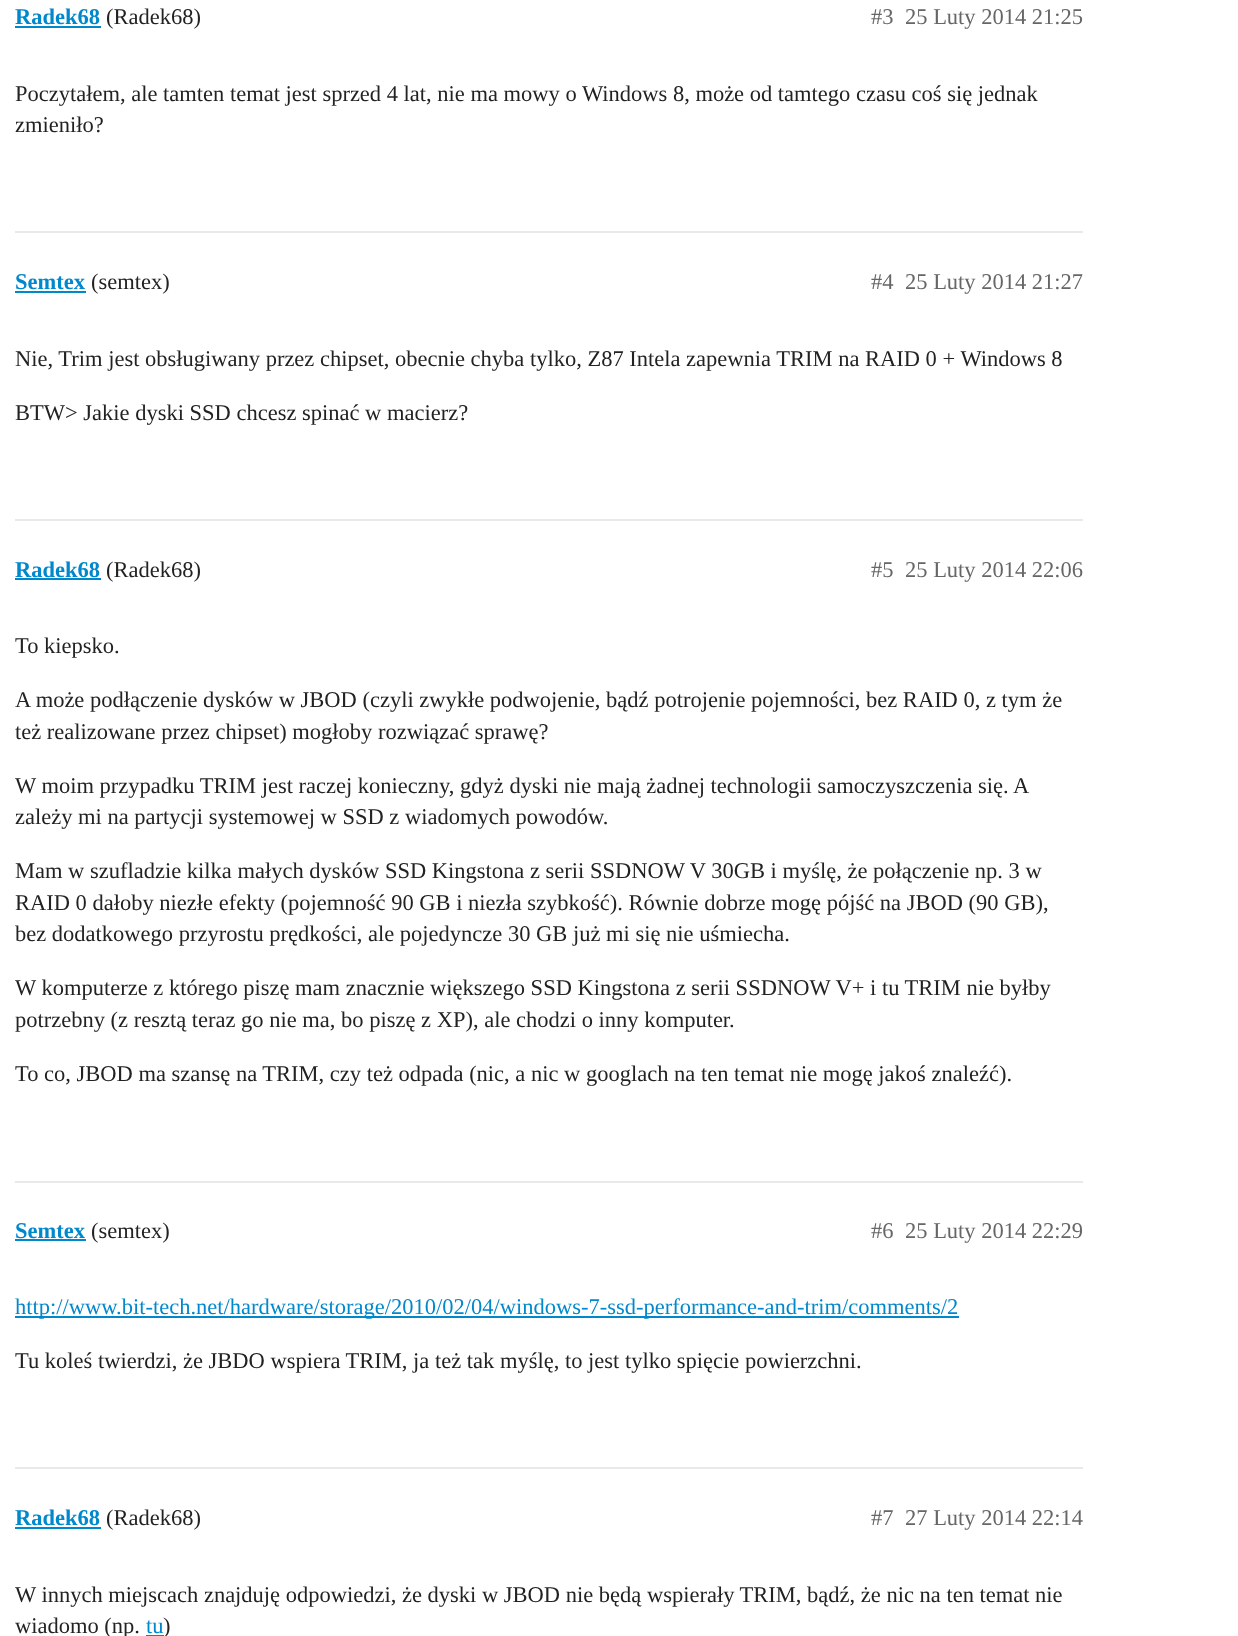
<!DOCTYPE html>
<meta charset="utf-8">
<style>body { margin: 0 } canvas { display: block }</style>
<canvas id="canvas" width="1238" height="1636"></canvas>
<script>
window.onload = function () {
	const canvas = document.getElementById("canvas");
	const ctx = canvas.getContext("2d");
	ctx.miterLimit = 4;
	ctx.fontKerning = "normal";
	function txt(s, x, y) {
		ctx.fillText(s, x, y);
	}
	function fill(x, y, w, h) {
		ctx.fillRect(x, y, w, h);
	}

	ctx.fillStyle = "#FFFFFF";
	fill(0, 0, 1238, 1636);
	ctx.fillStyle = "#0088CC";
	fill(15, 26, 86, 2);
	ctx.fillStyle = "#E9E9E9";
	fill(15, 231, 1068, 2);
	ctx.fillStyle = "#0088CC";
	fill(15, 291, 71, 2);
	ctx.fillStyle = "#E9E9E9";
	fill(15, 519, 1068, 2);
	ctx.fillStyle = "#0088CC";
	fill(15, 578, 86, 2);
	ctx.fillStyle = "#E9E9E9";
	fill(15, 1181, 1068, 2);
	ctx.fillStyle = "#0088CC";
	fill(15, 1239, 71, 2);
	fill(15, 1316, 944, 2);
	ctx.fillStyle = "#E9E9E9";
	fill(15, 1467, 1068, 2);
	ctx.fillStyle = "#0088CC";
	fill(15, 1527, 86, 2);
	fill(146, 1635, 18, 1);
	ctx.font = "bold 22.5px Liberation Serif";
	txt("Radek68", 15, 24);
	ctx.font = "22.5px Liberation Serif";
	ctx.fillStyle = "#222222";
	txt("(Radek68)", 106, 24);
	ctx.fillStyle = "#666666";
	txt("#3", 871, 24);
	txt("25 Luty 2014 21:25", 905, 24);
	ctx.fillStyle = "#222222";
	txt("Poczytałem, ale tamten temat jest sprzed 4 lat, nie ma mowy o Windows 8, może od tamtego czasu coś się jednak", 15, 101);
	txt("zmieniło?", 15, 132);
	ctx.font = "bold 22.5px Liberation Serif";
	ctx.fillStyle = "#0088CC";
	txt("Semtex", 15, 289);
	ctx.font = "22.5px Liberation Serif";
	ctx.fillStyle = "#222222";
	txt("(semtex)", 91, 289);
	ctx.fillStyle = "#666666";
	txt("#4", 871, 289);
	txt("25 Luty 2014 21:27", 905, 289);
	ctx.fillStyle = "#222222";
	txt("Nie, Trim jest obsługiwany przez chipset, obecnie chyba tylko, Z87 Intela zapewnia TRIM na RAID 0 + Windows 8", 15, 366);
	txt("BTW> Jakie dyski SSD chcesz spinać w macierz?", 15, 420);
	ctx.font = "bold 22.5px Liberation Serif";
	ctx.fillStyle = "#0088CC";
	txt("Radek68", 15, 577);
	ctx.font = "22.5px Liberation Serif";
	ctx.fillStyle = "#222222";
	txt("(Radek68)", 106, 577);
	ctx.fillStyle = "#666666";
	txt("#5", 871, 577);
	txt("25 Luty 2014 22:06", 905, 577);
	ctx.fillStyle = "#222222";
	txt("To kiepsko.", 15, 653);
	txt("A może podłączenie dysków w JBOD (czyli zwykłe podwojenie, bądź potrojenie pojemności, bez RAID 0, z tym że", 15, 707);
	txt("też realizowane przez chipset) mogłoby rozwiązać sprawę?", 15, 739);
	txt("W moim przypadku TRIM jest raczej konieczny, gdyż dyski nie mają żadnej technologii samoczyszczenia się. A", 15, 793);
	txt("zależy mi na partycji systemowej w SSD z wiadomych powodów.", 15, 824);
	txt("Mam w szufladzie kilka małych dysków SSD Kingstona z serii SSDNOW V 30GB i myślę, że połączenie np. 3 w", 15, 878);
	txt("RAID 0 dałoby niezłe efekty (pojemność 90 GB i niezła szybkość). Równie dobrze mogę pójść na JBOD (90 GB),", 15, 910);
	txt("bez dodatkowego przyrostu prędkości, ale pojedyncze 30 GB już mi się nie uśmiecha.", 15, 941);
	txt("W komputerze z którego piszę mam znacznie większego SSD Kingstona z serii SSDNOW V+ i tu TRIM nie byłby", 15, 995);
	txt("potrzebny (z resztą teraz go nie ma, bo piszę z XP), ale chodzi o inny komputer.", 15, 1027);
	txt("To co, JBOD ma szansę na TRIM, czy też odpada (nic, a nic w googlach na ten temat nie mogę jakoś znaleźć).", 15, 1081);
	ctx.font = "bold 22.5px Liberation Serif";
	ctx.fillStyle = "#0088CC";
	txt("Semtex", 15, 1238);
	ctx.font = "22.5px Liberation Serif";
	ctx.fillStyle = "#222222";
	txt("(semtex)", 91, 1238);
	ctx.fillStyle = "#666666";
	txt("#6", 871, 1238);
	txt("25 Luty 2014 22:29", 905, 1238);
	ctx.fillStyle = "#0088CC";
	txt("http://www.bit-tech.net/hardware/storage/2010/02/04/windows-7-ssd-performance-and-trim/comments/2", 15, 1314);
	ctx.fillStyle = "#222222";
	txt("Tu koleś twierdzi, że JBDO wspiera TRIM, ja też tak myślę, to jest tylko spięcie powierzchni.", 15, 1368);
	ctx.font = "bold 22.5px Liberation Serif";
	ctx.fillStyle = "#0088CC";
	txt("Radek68", 15, 1525);
	ctx.font = "22.5px Liberation Serif";
	ctx.fillStyle = "#222222";
	txt("(Radek68)", 106, 1525);
	ctx.fillStyle = "#666666";
	txt("#7", 871, 1525);
	txt("27 Luty 2014 22:14", 905, 1525);
	ctx.fillStyle = "#222222";
	txt("W innych miejscach znajduję odpowiedzi, że dyski w JBOD nie będą wspierały TRIM, bądź, że nic na ten temat nie", 15, 1602);
	txt("wiadomo (np.", 15, 1633);
	ctx.fillStyle = "#0088CC";
	txt("tu", 146, 1633);
	ctx.fillStyle = "#222222";
	txt(")", 163, 1633);
};
</script>
